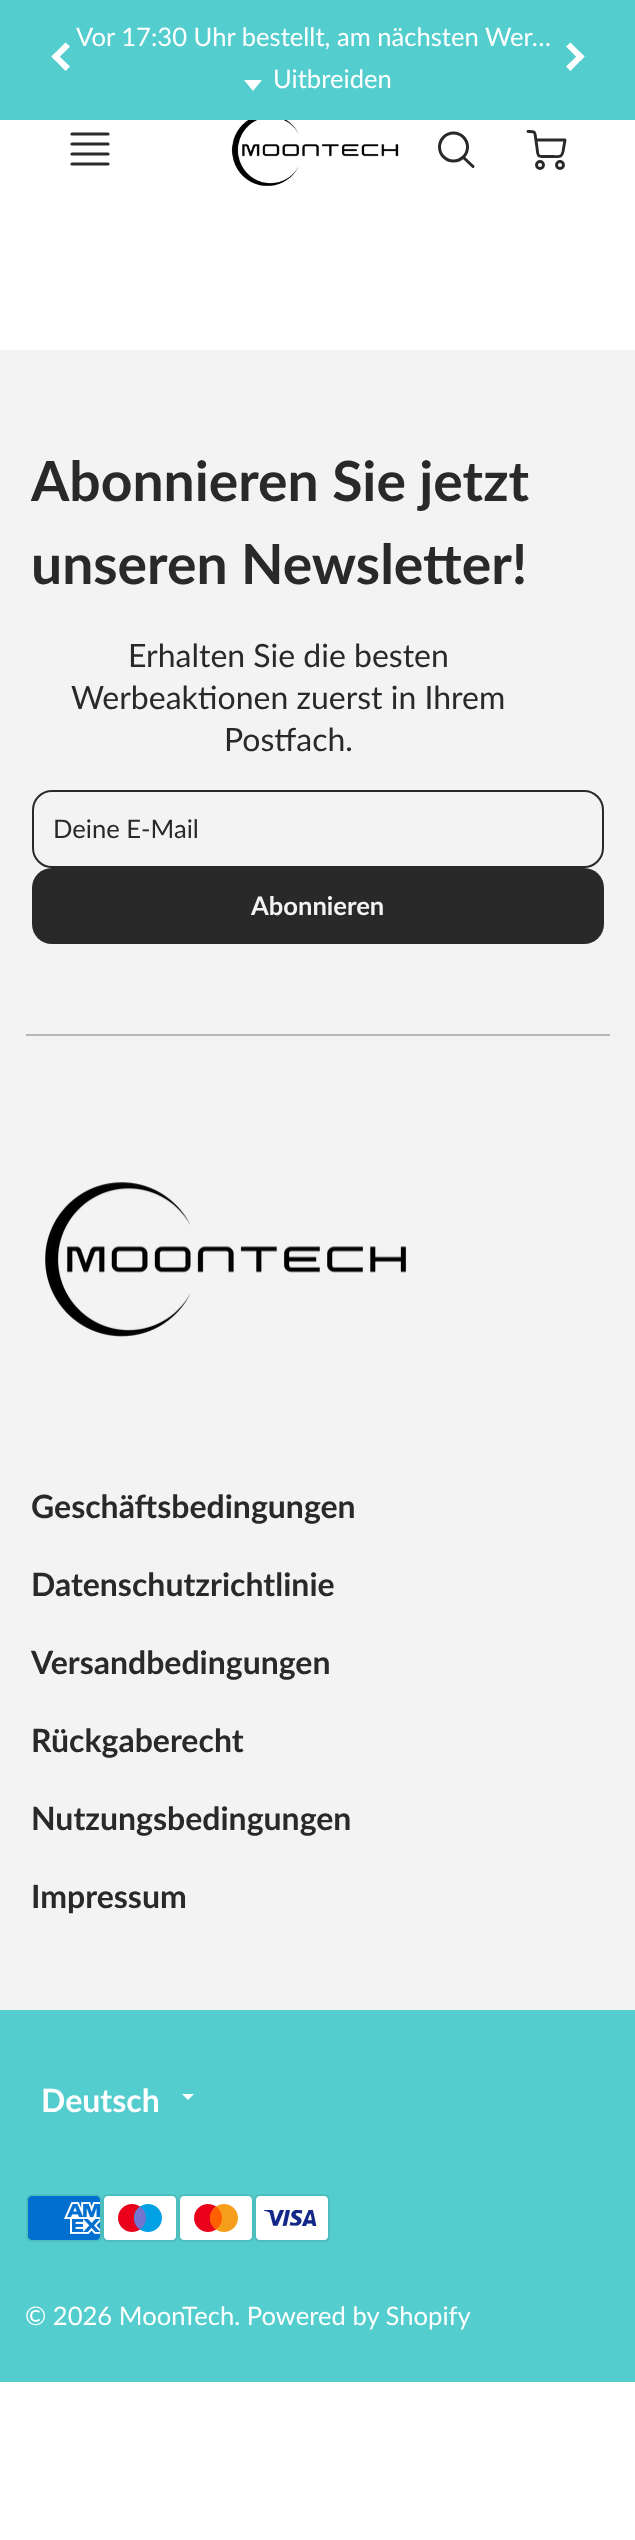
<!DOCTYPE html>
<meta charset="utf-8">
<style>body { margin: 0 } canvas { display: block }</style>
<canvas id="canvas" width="635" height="2540"></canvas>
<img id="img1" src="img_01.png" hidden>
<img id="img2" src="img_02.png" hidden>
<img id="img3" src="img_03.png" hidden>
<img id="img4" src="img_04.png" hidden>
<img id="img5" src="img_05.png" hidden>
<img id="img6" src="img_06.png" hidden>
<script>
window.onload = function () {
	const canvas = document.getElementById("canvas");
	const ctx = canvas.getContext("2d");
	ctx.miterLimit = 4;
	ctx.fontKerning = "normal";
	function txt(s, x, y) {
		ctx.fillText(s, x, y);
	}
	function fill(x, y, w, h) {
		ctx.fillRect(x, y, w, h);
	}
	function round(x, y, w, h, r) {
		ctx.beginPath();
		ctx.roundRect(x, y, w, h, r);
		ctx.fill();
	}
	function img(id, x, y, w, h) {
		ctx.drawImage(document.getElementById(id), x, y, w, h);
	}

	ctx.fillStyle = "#FFFFFF";
	fill(0, 0, 635, 2540);
	ctx.fillStyle = "#53CDCD";
	fill(0, 0, 635, 120);
	ctx.fillStyle = "#FFFFFF";
	ctx.beginPath();
	ctx.moveTo(65.5, 71);
	ctx.lineTo(51.5, 56.5);
	ctx.lineTo(55.5, 52.5);
	ctx.lineTo(70, 66.5);
	ctx.closePath();
	ctx.fill();
	ctx.beginPath();
	ctx.moveTo(55.5, 61);
	ctx.lineTo(51.5, 56.5);
	ctx.lineTo(65.5, 42.5);
	ctx.lineTo(70, 46.5);
	ctx.closePath();
	ctx.fill();
	ctx.beginPath();
	ctx.moveTo(244, 80);
	ctx.lineTo(253, 91);
	ctx.lineTo(262, 80);
	ctx.closePath();
	ctx.fill();
	ctx.beginPath();
	ctx.moveTo(570.5, 42.5);
	ctx.lineTo(584.5, 56.5);
	ctx.lineTo(580.5, 61);
	ctx.lineTo(566, 46.5);
	ctx.closePath();
	ctx.fill();
	ctx.beginPath();
	ctx.moveTo(580.5, 52.5);
	ctx.lineTo(584.5, 56.5);
	ctx.lineTo(570.5, 71);
	ctx.lineTo(566, 66.5);
	ctx.closePath();
	ctx.fill();
	ctx.beginPath();
	ctx.moveTo(108, 154);
	ctx.lineTo(72, 154);
	ctx.moveTo(108, 164);
	ctx.lineTo(72, 164);
	ctx.moveTo(108, 134);
	ctx.lineTo(72, 134);
	ctx.moveTo(108, 144);
	ctx.lineTo(72, 144);
	ctx.strokeStyle = "#292929";
	ctx.lineWidth = 3.2;
	ctx.lineCap = "round";
	ctx.lineJoin = "round";
	ctx.stroke();
	img("img1", 231, 120, 168, 66);
	ctx.beginPath();
	ctx.arc(453.5, 147, 14, 0, Math.PI * 2);
	ctx.lineWidth = 3;
	ctx.stroke();
	ctx.beginPath();
	ctx.moveTo(473, 166.5);
	ctx.lineTo(463.5, 157.5);
	ctx.stroke();
	ctx.beginPath();
	ctx.arc(540, 165, 3.5, 0, Math.PI * 2);
	ctx.lineWidth = 2.9;
	ctx.stroke();
	ctx.beginPath();
	ctx.arc(560, 165, 3.5, 0, Math.PI * 2);
	ctx.stroke();
	ctx.beginPath();
	ctx.moveTo(536, 140);
	ctx.lineTo(565, 140);
	ctx.lineTo(563, 151.5);
	ctx.bezierCurveTo(561.5, 158, 559.5, 156.5, 553, 156.5);
	ctx.lineTo(544, 156.5);
	ctx.bezierCurveTo(536.5, 156.5, 538, 155, 537, 147.5);
	ctx.lineTo(535.5, 137.5);
	ctx.bezierCurveTo(535, 131, 534, 131.5, 528, 131.5);
	ctx.stroke();
	ctx.fillStyle = "#F3F3F3";
	fill(0, 350, 635, 1660);
	ctx.beginPath();
	ctx.roundRect(33, 791, 570, 76, 19);
	ctx.lineWidth = 2;
	ctx.lineJoin = "miter";
	ctx.stroke();
	ctx.fillStyle = "#292929";
	round(32, 868, 572, 76, 20);
	ctx.fillStyle = "#B6B6B6";
	fill(26, 1034, 584, 2);
	img("img2", 45, 1182, 362, 155);
	ctx.fillStyle = "#53CDCD";
	fill(0, 2010, 635, 372);
	ctx.fillStyle = "#FFFFFF";
	ctx.beginPath();
	ctx.moveTo(182, 2094);
	ctx.lineTo(194, 2094);
	ctx.lineTo(188, 2100);
	ctx.closePath();
	ctx.fill();
	img("img3", 26, 2194, 76, 48);
	img("img4", 102, 2194, 76, 48);
	img("img5", 178, 2194, 76, 48);
	img("img6", 254, 2194, 76, 48);
	ctx.font = "25.6px Lato";
	txt("Vor 17:30 Uhr bestellt, am nächsten Wer…", 76, 46);
	txt("Uitbreiden", 273, 88);
	ctx.font = "bold 55.25px Lato";
	ctx.fillStyle = "#292929";
	txt("Abonnieren Sie jetzt", 31, 501);
	txt("unseren Newsletter!", 31, 584);
	ctx.font = "32px Lato";
	txt("Erhalten Sie die besten", 128, 667);
	txt("Werbeaktionen zuerst in Ihrem", 71, 709);
	txt("Postfach.", 224, 751);
	ctx.font = "25.6px Lato";
	txt("Deine E-Mail", 53, 838);
	ctx.font = "bold 25.6px Lato";
	ctx.fillStyle = "#F3F3F3";
	txt("Abonnieren", 251, 915);
	ctx.font = "bold 32px Lato";
	ctx.fillStyle = "#292929";
	txt("Geschäftsbedingungen", 31, 1518);
	txt("Datenschutzrichtlinie", 31, 1596);
	txt("Versandbedingungen", 31, 1674);
	txt("Rückgaberecht", 31, 1752);
	txt("Nutzungsbedingungen", 31, 1830);
	txt("Impressum", 31, 1908);
	ctx.fillStyle = "#FFFFFF";
	txt("Deutsch", 41, 2112);
	ctx.font = "25.6px Lato";
	txt("© 2026 MoonTech. Powered by Shopify", 25, 2325);
};
</script>
